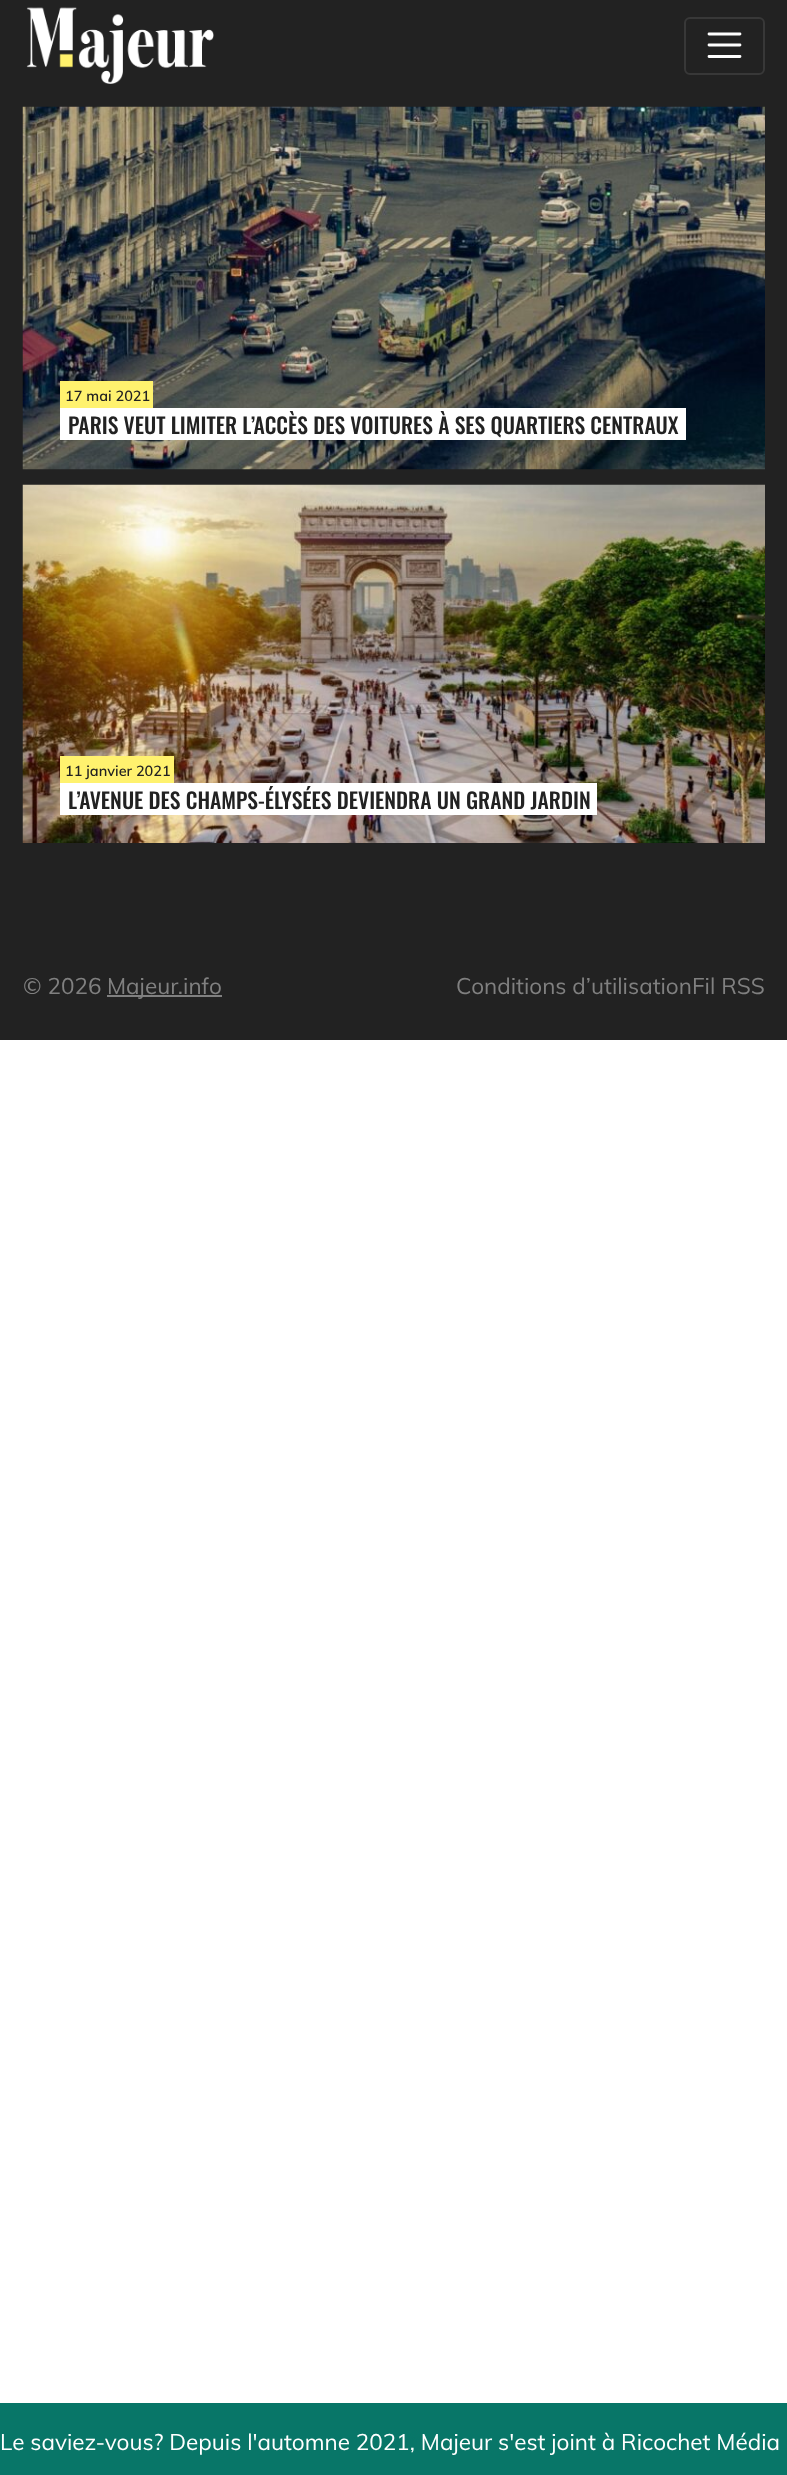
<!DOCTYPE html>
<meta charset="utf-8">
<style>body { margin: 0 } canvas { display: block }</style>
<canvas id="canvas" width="787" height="2475"></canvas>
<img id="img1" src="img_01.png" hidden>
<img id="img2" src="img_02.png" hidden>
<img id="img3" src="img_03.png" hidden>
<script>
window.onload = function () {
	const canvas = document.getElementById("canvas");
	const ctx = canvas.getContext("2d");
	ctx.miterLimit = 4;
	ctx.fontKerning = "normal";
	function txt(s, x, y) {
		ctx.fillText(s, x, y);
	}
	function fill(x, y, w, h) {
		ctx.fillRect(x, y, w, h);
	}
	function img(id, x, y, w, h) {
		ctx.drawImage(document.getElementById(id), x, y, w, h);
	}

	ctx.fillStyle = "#FFFFFF";
	fill(0, 0, 787, 2475);
	ctx.fillStyle = "#222222";
	fill(0, 0, 787, 1040);
	img("img1", 26, 7, 188, 77);
	ctx.beginPath();
	ctx.roundRect(685, 18, 79, 56, 5);
	ctx.strokeStyle = "#383838";
	ctx.lineWidth = 2;
	ctx.stroke();
	ctx.beginPath();
	ctx.moveTo(709, 34);
	ctx.lineTo(740, 34);
	ctx.moveTo(709, 45);
	ctx.lineTo(740, 45);
	ctx.moveTo(709, 56.5);
	ctx.lineTo(740, 56.5);
	ctx.strokeStyle = "#FFFFFF";
	ctx.lineWidth = 2.8;
	ctx.lineCap = "round";
	ctx.stroke();
	img("img2", 22, 106, 743, 364);
	ctx.fillStyle = "#FFF26E";
	fill(60, 381, 93, 27);
	ctx.fillStyle = "#FFFFFF";
	ctx.beginPath();
	ctx.moveTo(60, 408);
	ctx.lineTo(60, 440);
	ctx.lineTo(671, 440);
	ctx.lineTo(68, 440);
	ctx.lineTo(68, 408);
	ctx.closePath();
	ctx.fill();
	ctx.beginPath();
	ctx.moveTo(75, 440);
	ctx.lineTo(686, 440);
	ctx.lineTo(686, 408);
	ctx.lineTo(678, 408);
	ctx.lineTo(678, 440);
	ctx.closePath();
	ctx.fill();
	fill(68, 408, 610, 32);
	img("img3", 22, 484, 743, 359);
	ctx.fillStyle = "#FFF26E";
	fill(60, 756, 114, 27);
	ctx.fillStyle = "#FFFFFF";
	ctx.beginPath();
	ctx.moveTo(60, 783);
	ctx.lineTo(60, 815);
	ctx.lineTo(582, 815);
	ctx.lineTo(582, 814);
	ctx.lineTo(68, 814);
	ctx.lineTo(68, 783);
	ctx.closePath();
	ctx.fill();
	ctx.beginPath();
	ctx.moveTo(75, 814);
	ctx.lineTo(75, 815);
	ctx.lineTo(597, 815);
	ctx.lineTo(597, 783);
	ctx.lineTo(590, 783);
	ctx.lineTo(590, 814);
	ctx.closePath();
	ctx.fill();
	fill(68, 783, 522, 31);
	ctx.fillStyle = "#808080";
	fill(107, 995, 115, 2);
	ctx.fillStyle = "#087668";
	fill(0, 2403, 787, 72);
	ctx.font = "600 14.5px Muli";
	ctx.fillStyle = "#222222";
	txt("17 mai 2021", 65, 401);
	ctx.font = "500 21.6px Oswald";
	txt("PARIS VEUT LIMITER L’ACCÈS DES VOITURES À SES QUARTIERS CENTRAUX", 68, 434);
	ctx.font = "600 14.5px Muli";
	txt("11 janvier 2021", 65, 776);
	ctx.font = "500 21.6px Oswald";
	txt("L’AVENUE DES CHAMPS-ÉLYSÉES DEVIENDRA UN GRAND JARDIN", 68, 809);
	ctx.font = "22.5px Muli";
	ctx.fillStyle = "#808080";
	txt("© 2026", 23, 994);
	txt("Majeur.info", 107, 994);
	txt("Conditions d’utilisationFil RSS", 456, 994);
	ctx.fillStyle = "#FFFFFF";
	txt("Le saviez-vous? Depuis l'automne 2021, Majeur s'est joint à Ricochet Média", 0, 2450);
};
</script>
